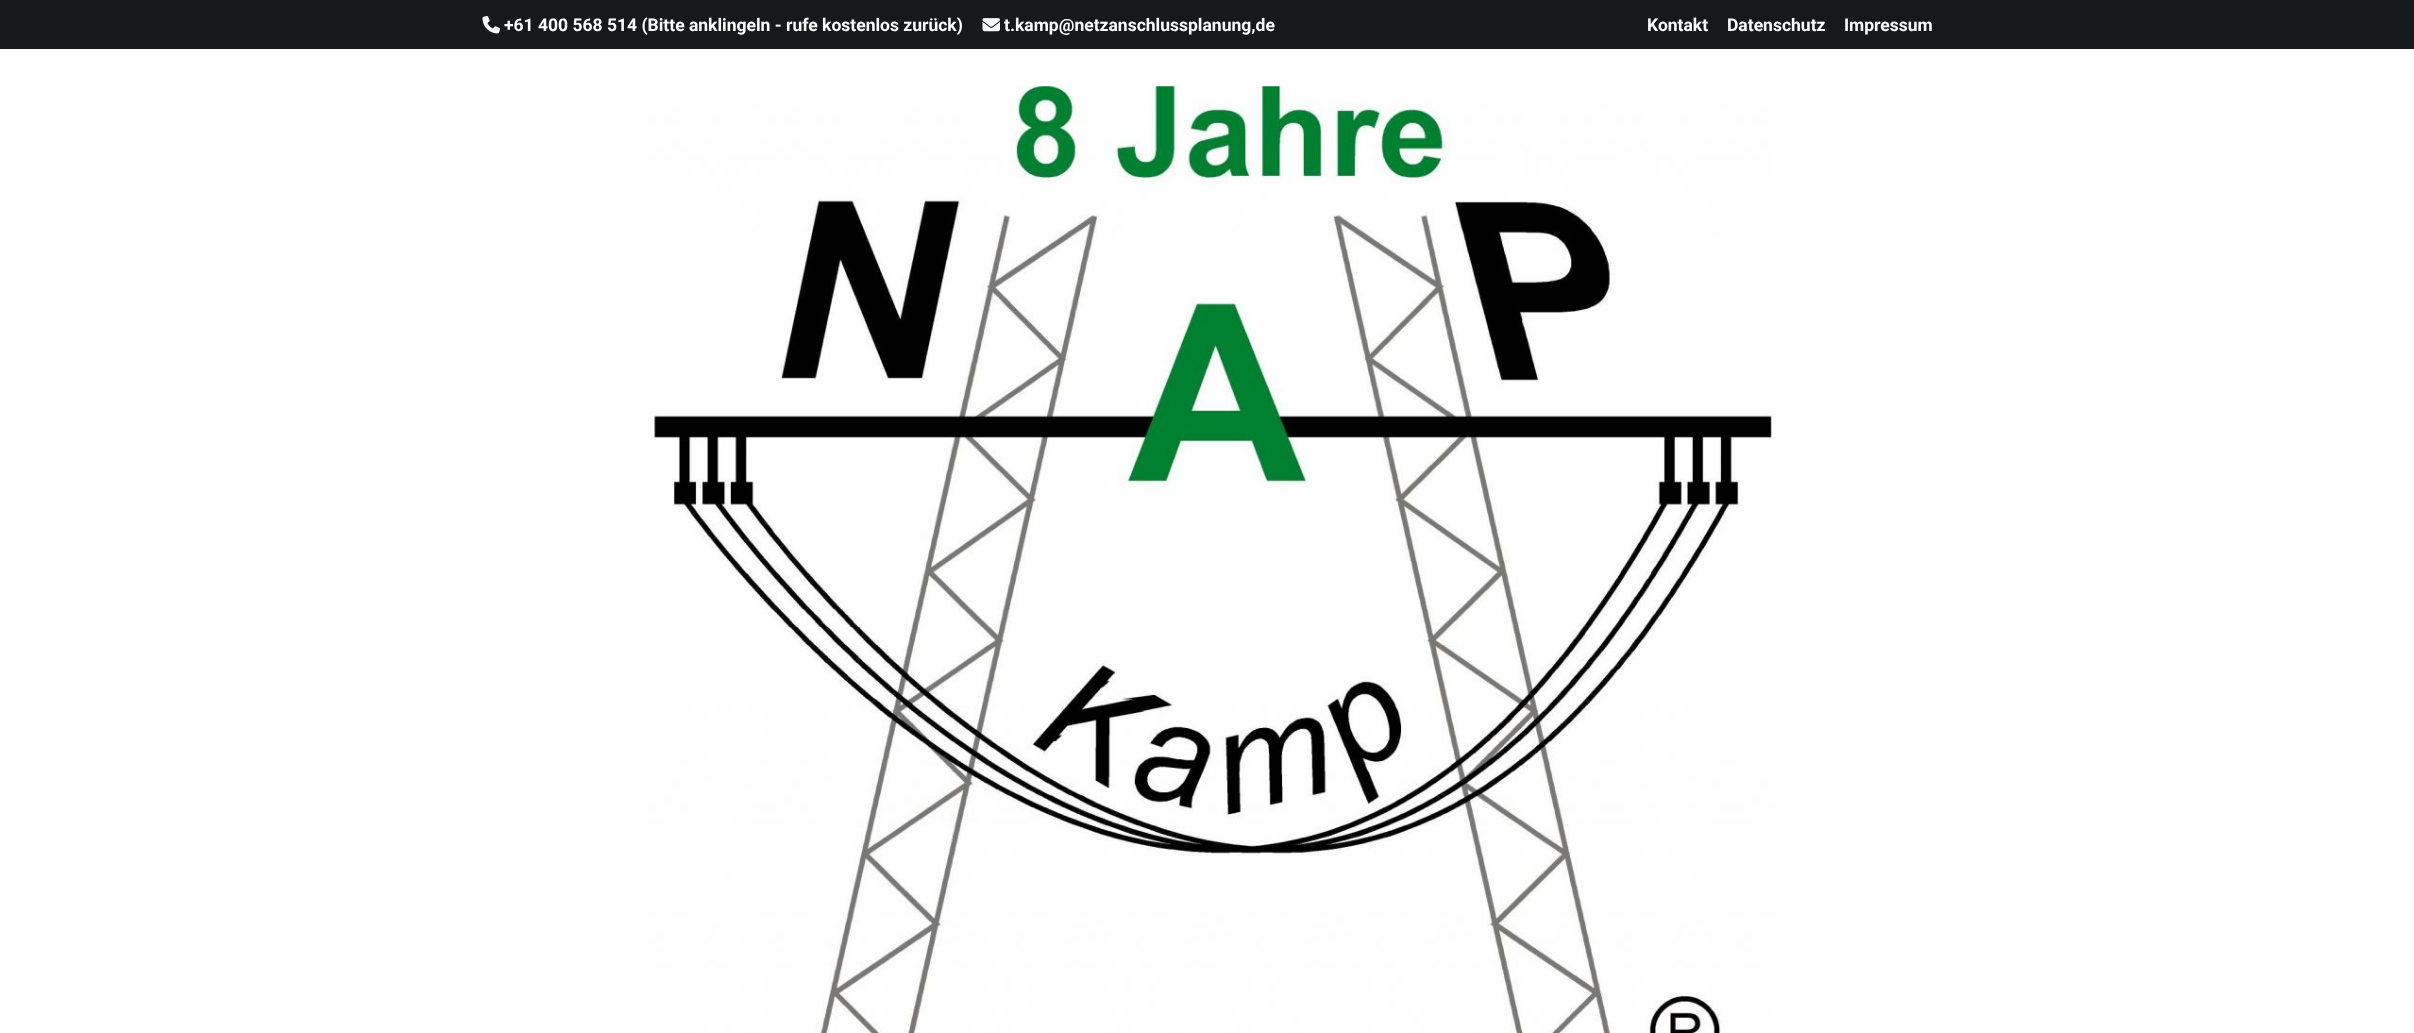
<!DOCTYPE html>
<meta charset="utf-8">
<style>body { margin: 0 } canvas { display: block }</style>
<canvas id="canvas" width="2414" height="1033"></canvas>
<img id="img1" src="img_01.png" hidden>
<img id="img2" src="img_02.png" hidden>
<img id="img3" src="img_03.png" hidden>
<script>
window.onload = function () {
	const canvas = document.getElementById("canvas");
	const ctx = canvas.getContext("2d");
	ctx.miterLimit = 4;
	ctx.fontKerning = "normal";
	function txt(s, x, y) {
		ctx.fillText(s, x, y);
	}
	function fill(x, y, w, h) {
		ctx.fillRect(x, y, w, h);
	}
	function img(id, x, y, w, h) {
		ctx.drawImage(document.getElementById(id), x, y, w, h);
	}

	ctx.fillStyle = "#FFFFFF";
	fill(0, 0, 2414, 1033);
	ctx.fillStyle = "#16181A";
	fill(0, 0, 2414, 49);
	img("img1", 482, 15, 18, 19);
	img("img2", 982, 18, 18, 14);
	img("img3", 649, 86, 1125, 947);
	ctx.font = "bold 17.5px Roboto";
	ctx.fillStyle = "#FFFFFF";
	txt("+61 400 568 514 (Bitte anklingeln - rufe kostenlos zurück)", 504, 31);
	txt("t.kamp@netzanschlussplanung,de", 1004, 31);
	txt("Kontakt", 1647, 31);
	txt("Datenschutz", 1727, 31);
	txt("Impressum", 1844, 31);
};
</script>
